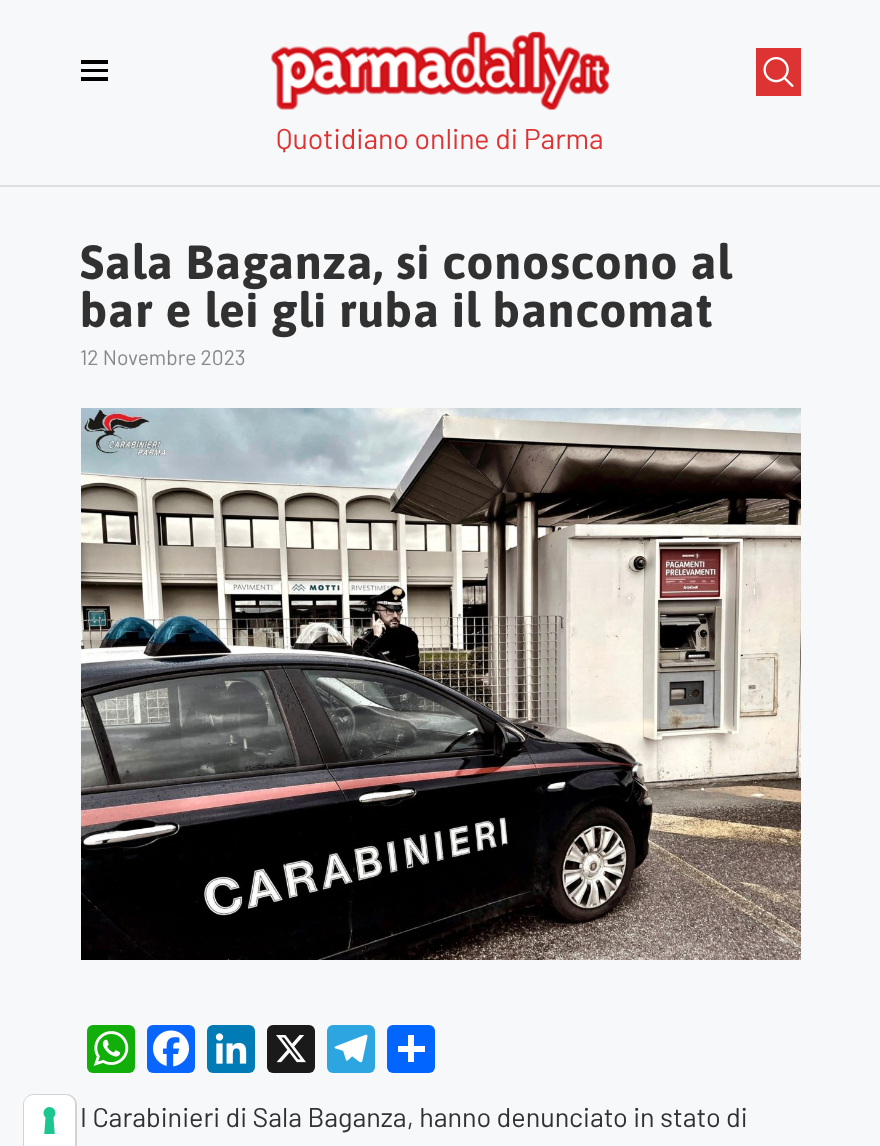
<!DOCTYPE html>
<meta charset="utf-8">
<style>body { margin: 0 } canvas { display: block }</style>
<canvas id="canvas" width="880" height="1146"></canvas>
<img id="img1" src="img_01.png" hidden>
<img id="img2" src="img_02.png" hidden>
<img id="img3" src="img_03.png" hidden>
<img id="img4" src="img_04.png" hidden>
<img id="img5" src="img_05.png" hidden>
<img id="img6" src="img_06.png" hidden>
<img id="img7" src="img_07.png" hidden>
<img id="img8" src="img_08.png" hidden>
<img id="img9" src="img_09.png" hidden>
<script>
window.onload = function () {
	const canvas = document.getElementById("canvas");
	const ctx = canvas.getContext("2d");
	ctx.miterLimit = 4;
	ctx.fontKerning = "normal";
	function txt(s, x, y) {
		ctx.fillText(s, x, y);
	}
	function fill(x, y, w, h) {
		ctx.fillRect(x, y, w, h);
	}
	function round(x, y, w, h, r) {
		ctx.beginPath();
		ctx.roundRect(x, y, w, h, r);
		ctx.fill();
	}
	function img(id, x, y, w, h) {
		ctx.drawImage(document.getElementById(id), x, y, w, h);
	}

	ctx.fillStyle = "#F6F8FA";
	fill(0, 0, 880, 1146);
	ctx.beginPath();
	ctx.moveTo(34, 1095);
	ctx.lineTo(66, 1095);
	ctx.bezierCurveTo(71.5, 1095, 76, 1099.5, 76, 1105);
	ctx.lineTo(76, 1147);
	ctx.lineTo(24, 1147);
	ctx.lineTo(24, 1105);
	ctx.bezierCurveTo(24, 1099.5, 28.5, 1095, 34, 1095);
	ctx.closePath();
	ctx.strokeStyle = "#D1D3D5";
	ctx.lineWidth = 2;
	ctx.stroke();
	ctx.fillStyle = "#FFFFFF";
	ctx.beginPath();
	ctx.roundRect(24, 1095, 51, 51, [9, 9, 0, 0]);
	ctx.fill();
	img("img1", 43, 1107, 13, 27);
	ctx.fillStyle = "#000000";
	fill(81, 60, 27, 4);
	fill(81, 69, 27, 3);
	fill(81, 77, 27, 4);
	img("img2", 271, 31, 338, 79);
	ctx.fillStyle = "#DD3333";
	fill(756, 48, 45, 48);
	img("img3", 763, 57, 31, 30);
	ctx.fillStyle = "#DEDEDE";
	fill(0, 185, 880, 2);
	img("img4", 81, 408, 720, 552);
	ctx.fillStyle = "#12AF0A";
	round(87, 1025, 48, 48, 6);
	img("img5", 93, 1031, 36, 35);
	ctx.fillStyle = "#0866FF";
	round(147, 1025, 48, 48, 6);
	img("img6", 153, 1030, 36, 37);
	ctx.fillStyle = "#007BB5";
	round(207, 1025, 48, 48, 6);
	img("img7", 215, 1033, 32, 31);
	ctx.fillStyle = "#1A1A1A";
	round(267, 1025, 48, 48, 6);
	img("img8", 276, 1035, 30, 28);
	ctx.fillStyle = "#2CA5E0";
	round(327, 1025, 48, 48, 6);
	img("img9", 334, 1034, 34, 29);
	ctx.fillStyle = "#0166FF";
	round(387, 1025, 48, 48, 6);
	ctx.fillStyle = "#FFFFFF";
	fill(408, 1035, 6, 27);
	fill(398, 1046, 27, 6);
	ctx.font = "28.5px Barlow";
	ctx.fillStyle = "#DD3333";
	txt("Quotidiano online di Parma", 276, 149);
	ctx.letterSpacing = "0.75px";
	ctx.font = "bold 48px Asap";
	ctx.fillStyle = "#313131";
	txt("Sala Baganza, si conoscono al", 80, 279);
	txt("bar e lei gli ruba il bancomat", 80, 327);
	ctx.letterSpacing = "0px";
	ctx.font = "21px Barlow";
	ctx.fillStyle = "#888888";
	txt("12 Novembre 2023", 80, 365);
	ctx.font = "27px Barlow";
	ctx.fillStyle = "#313131";
	txt("I Carabinieri di Sala Baganza, hanno denunciato in stato di", 80, 1127);
};
</script>
